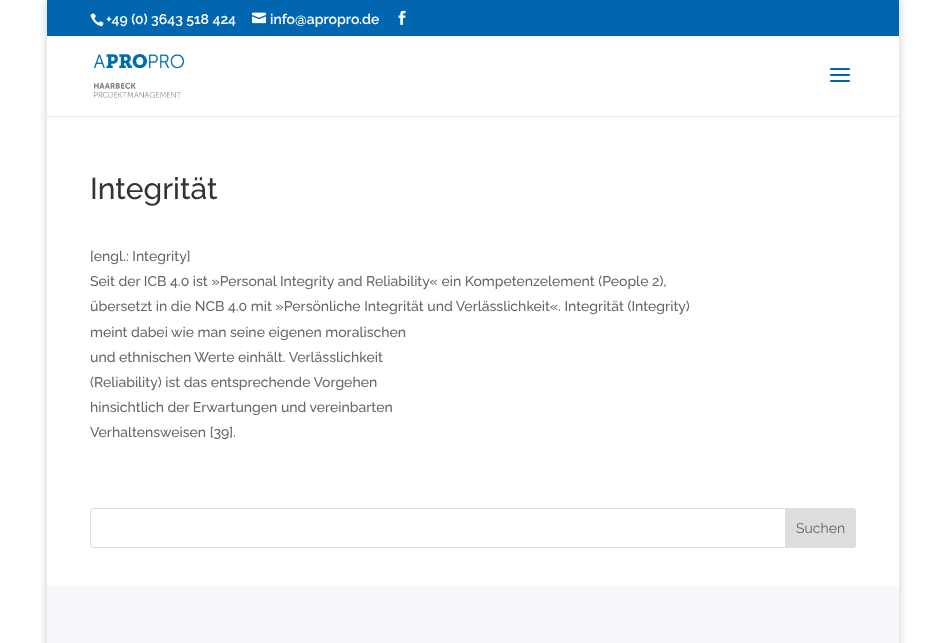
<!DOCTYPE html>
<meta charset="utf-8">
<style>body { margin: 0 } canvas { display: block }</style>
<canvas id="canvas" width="946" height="643"></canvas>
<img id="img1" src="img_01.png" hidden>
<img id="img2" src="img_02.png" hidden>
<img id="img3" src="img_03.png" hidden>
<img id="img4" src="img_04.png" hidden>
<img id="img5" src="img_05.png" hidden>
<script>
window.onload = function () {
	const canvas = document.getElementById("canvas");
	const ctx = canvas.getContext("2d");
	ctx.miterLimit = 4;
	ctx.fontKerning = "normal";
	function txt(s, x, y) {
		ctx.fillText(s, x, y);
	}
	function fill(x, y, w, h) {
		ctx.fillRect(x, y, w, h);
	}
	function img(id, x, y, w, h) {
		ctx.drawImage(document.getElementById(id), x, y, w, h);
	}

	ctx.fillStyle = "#FFFFFF";
	fill(0, 0, 946, 643);
	ctx.save();
	ctx.beginPath();
	ctx.moveTo(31, 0);
	ctx.lineTo(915, 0);
	ctx.lineTo(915, 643);
	ctx.lineTo(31, 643);
	ctx.closePath();
	ctx.moveTo(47, 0);
	ctx.lineTo(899, 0);
	ctx.lineTo(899, 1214);
	ctx.lineTo(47, 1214);
	ctx.closePath();
	ctx.clip("evenodd");
	ctx.fillStyle = "rgba(0, 0, 0, 0.2)";
	ctx.filter = "blur(5px)";
	ctx.beginPath();
	ctx.rect(47, 0, 852, 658);
	ctx.fill();
	ctx.filter = "none";
	ctx.restore();
	ctx.fillStyle = "#0066B0";
	fill(47, 0, 852, 36);
	img("img1", 90, 13, 14, 14);
	img("img2", 252, 12, 14, 12);
	img("img3", 398, 10, 8, 15);
	ctx.fillStyle = "#E6E6E6";
	fill(47, 116, 852, 1);
	img("img4", 94, 54, 90, 44);
	img("img5", 830, 68, 20, 14);
	ctx.beginPath();
	ctx.roundRect(90.5, 508.5, 765, 39, 2.5);
	ctx.strokeStyle = "#DDDDDD";
	ctx.stroke();
	ctx.fillStyle = "#DDDDDD";
	ctx.beginPath();
	ctx.roundRect(785.5, 508.5, 70, 39, [0, 2.5, 2.5, 0]);
	ctx.fill();
	ctx.stroke();
	ctx.fillStyle = "#F7F8FC";
	fill(47, 586, 852, 57);
	ctx.font = "100 14px Raleway";
	ctx.fillStyle = "#FFFFFF";
	txt("+49 (0) 3643 518 424", 106, 24);
	txt("info@apropro.de", 270, 24);
	ctx.font = "100 30px 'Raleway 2'";
	ctx.fillStyle = "#333333";
	txt("Integrität", 90, 199);
	ctx.font = "100 14px 'Raleway 2'";
	ctx.fillStyle = "#666666";
	txt("[engl.: Integrity]", 90, 261);
	txt("Seit der ICB 4.0 ist »Personal Integrity and Reliability« ein Kompetenzelement (People 2),", 90, 286);
	txt("übersetzt in die NCB 4.0 mit »Persönliche Integrität und Verlässlichkeit«. Integrität (Integrity)", 90, 311);
	txt("meint dabei wie man seine eigenen moralischen", 90, 337);
	txt("und ethnischen Werte einhält. Verlässlichkeit", 90, 362);
	txt("(Reliability) ist das entsprechende Vorgehen", 90, 387);
	txt("hinsichtlich der Erwartungen und vereinbarten", 90, 412);
	txt("Verhaltensweisen [39].", 90, 437);
	ctx.font = "100 14px 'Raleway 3'";
	txt("Suchen", 796, 533);
};
</script>
